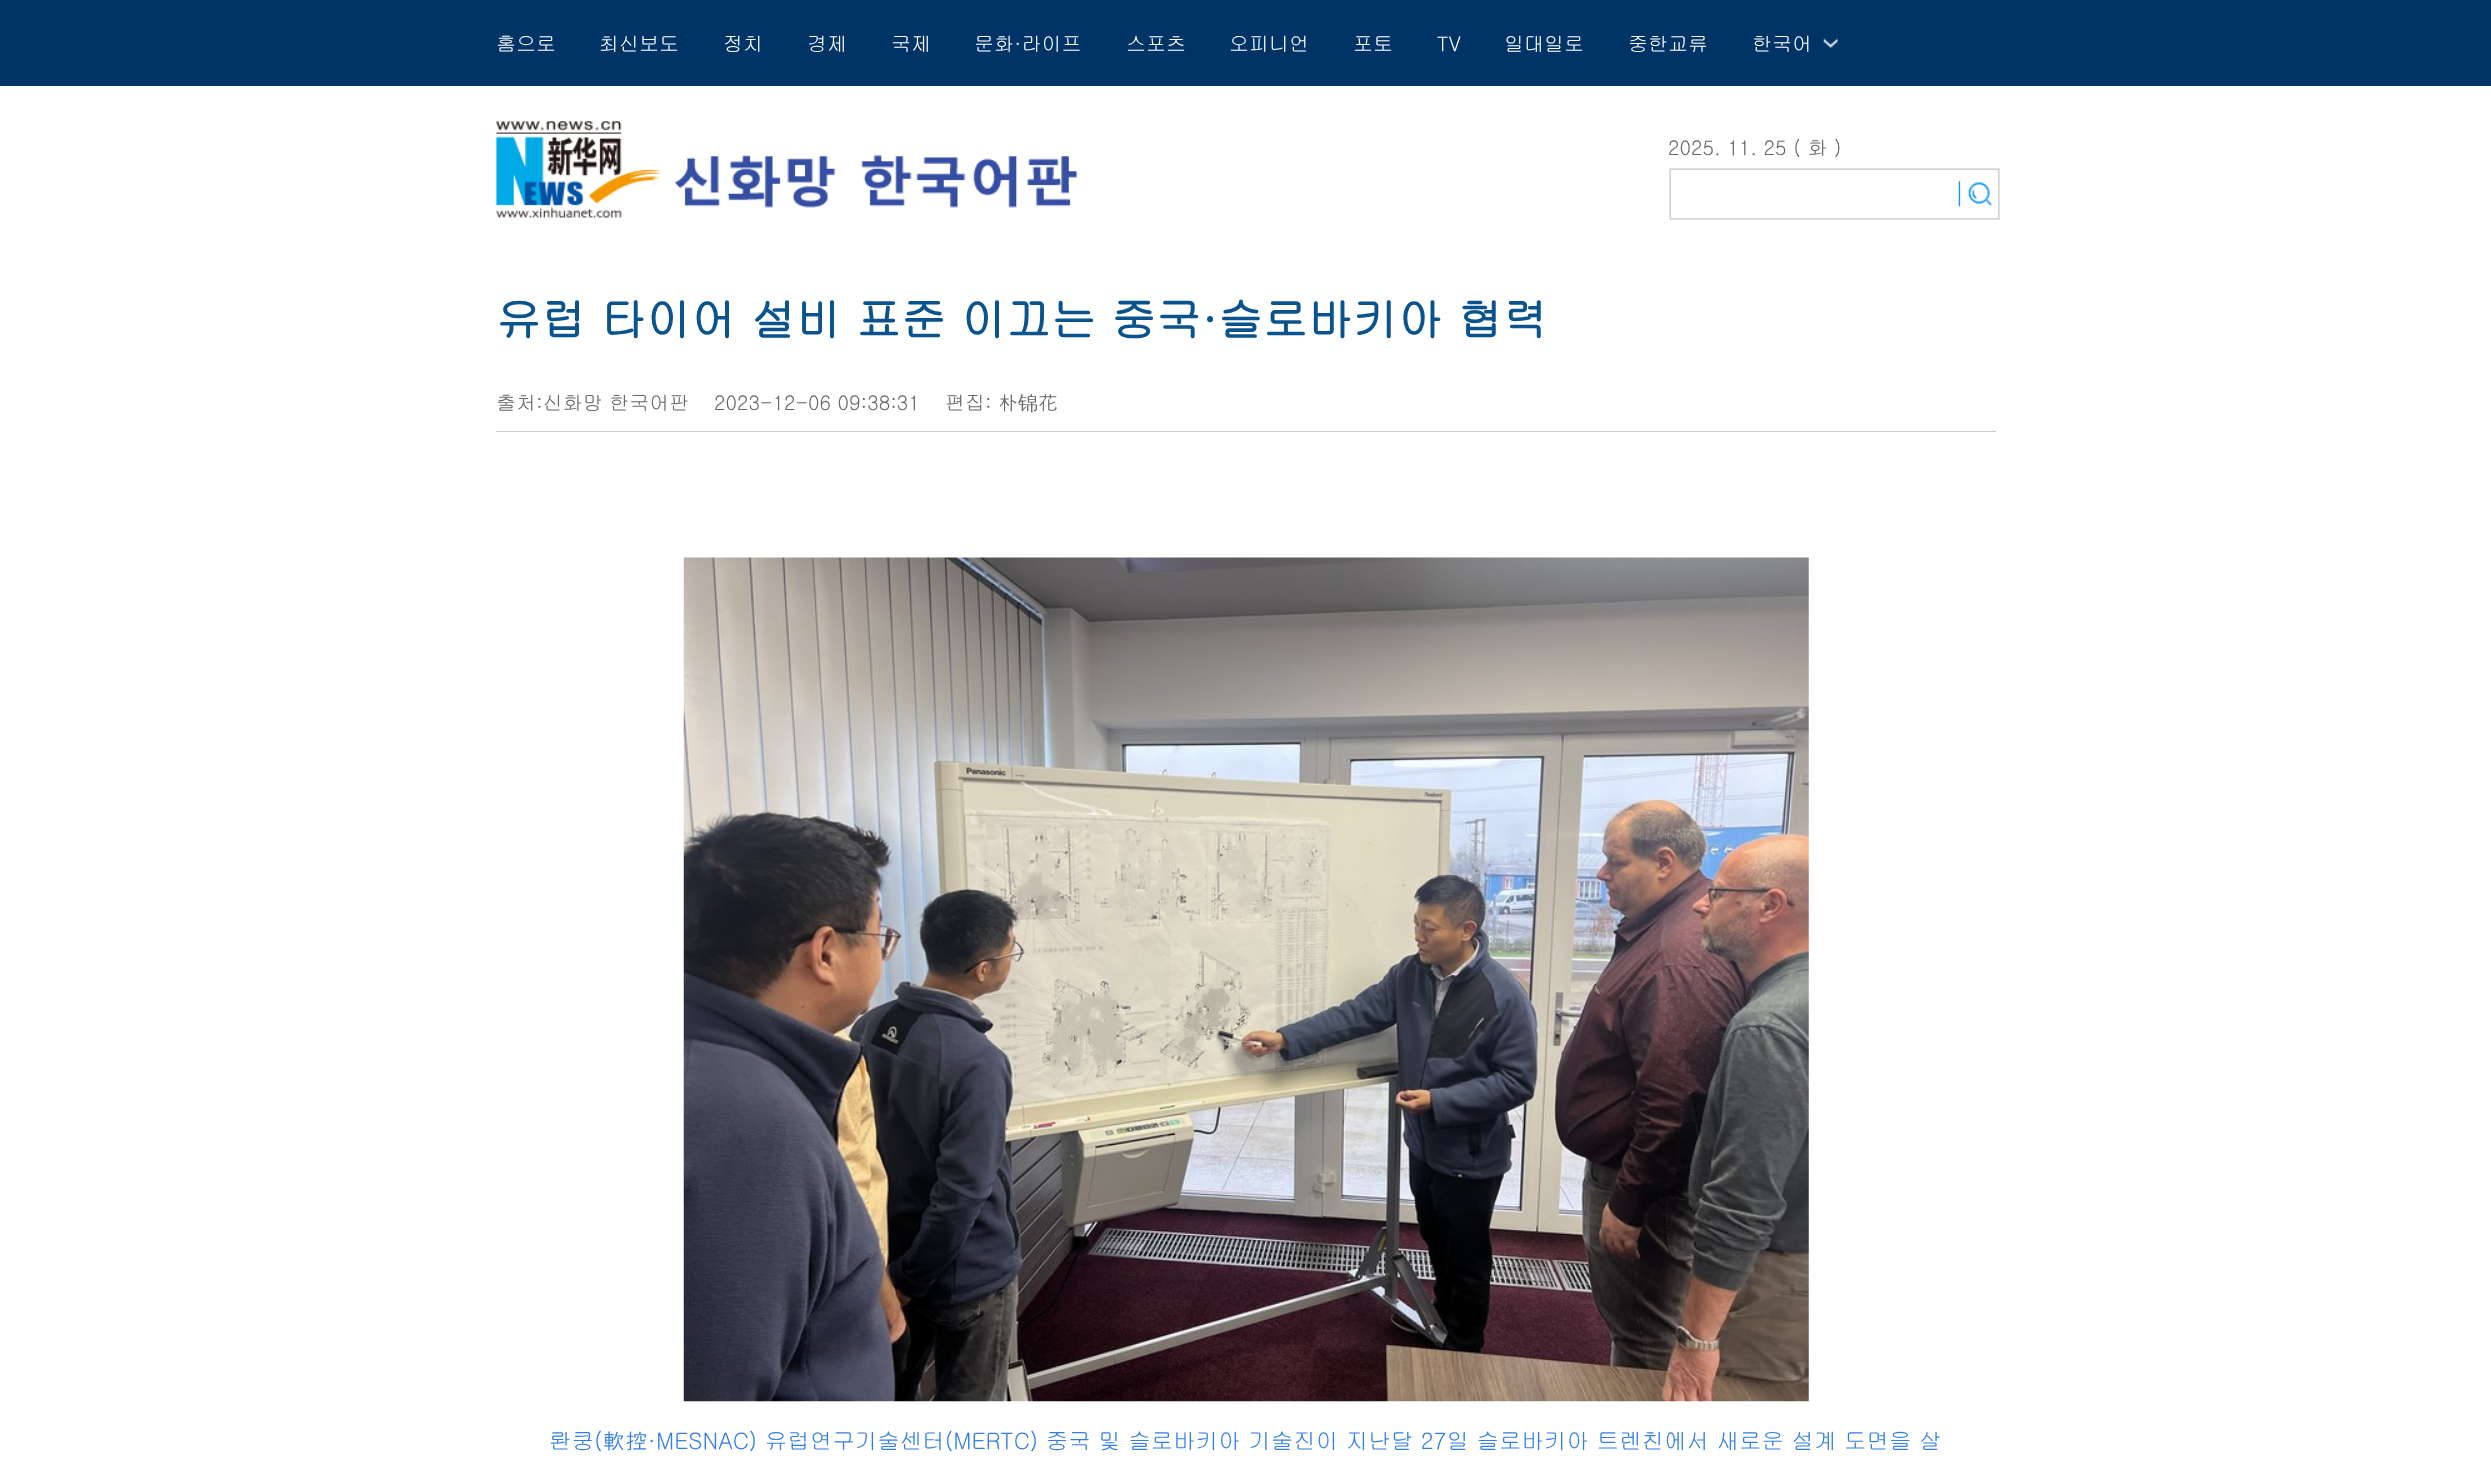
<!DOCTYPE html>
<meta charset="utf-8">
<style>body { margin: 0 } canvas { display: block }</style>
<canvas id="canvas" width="2491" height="1459"></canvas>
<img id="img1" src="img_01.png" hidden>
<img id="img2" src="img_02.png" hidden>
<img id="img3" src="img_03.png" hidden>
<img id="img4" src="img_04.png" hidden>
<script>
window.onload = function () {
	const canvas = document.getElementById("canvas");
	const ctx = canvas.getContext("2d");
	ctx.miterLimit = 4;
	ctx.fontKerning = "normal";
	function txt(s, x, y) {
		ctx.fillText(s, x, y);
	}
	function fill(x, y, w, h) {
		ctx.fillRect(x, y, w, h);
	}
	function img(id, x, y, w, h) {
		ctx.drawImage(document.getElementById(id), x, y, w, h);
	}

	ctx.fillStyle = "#FFFFFF";
	fill(0, 0, 2491, 1459);
	ctx.fillStyle = "#003366";
	fill(0, 0, 2491, 86);
	img("img1", 1823, 38, 15, 10);
	img("img2", 496, 121, 582, 97);
	ctx.strokeStyle = "#E2E2E2";
	ctx.strokeRect(1669.5, 168.5, 330, 51);
	ctx.fillStyle = "#D3D3D3";
	fill(1670, 169, 329, 1);
	fill(1998, 169, 1, 50);
	fill(1670, 218, 329, 1);
	img("img3", 1958, 181, 34, 26);
	fill(1670, 169, 1, 50);
	ctx.fillStyle = "#CCCCCC";
	fill(496, 431, 1500, 1);
	img("img4", 683, 557, 1126, 845);
	ctx.font = "20px Gulim";
	ctx.fillStyle = "#FFFFFF";
	txt("홈으로", 496, 51);
	txt("최신보도", 599, 51);
	txt("정치", 723, 51);
	txt("경제", 807, 51);
	txt("국제", 891, 51);
	txt("문화·라이프", 974, 51);
	txt("스포츠", 1126, 51);
	txt("오피니언", 1229, 51);
	txt("포토", 1353, 51);
	txt("TV", 1437, 51);
	txt("일대일로", 1504, 51);
	txt("중한교류", 1628, 51);
	txt("한국어", 1752, 51);
	ctx.fillStyle = "#666666";
	txt("2025. 11. 25 ( 화 )", 1668, 155);
	ctx.font = "bold 45px Gulim";
	ctx.fillStyle = "#0A538D";
	txt("유럽 타이어 설비 표준 이끄는 중국·슬로바키아 협력", 496, 336);
	ctx.font = "20px Gulim";
	ctx.fillStyle = "#666666";
	txt("출처:신화망 한국어판", 496, 410);
	txt("2023-12-06 09:38:31", 714, 410);
	txt("편집: 朴", 945, 410);
	ctx.font = "500 20px WenQuanYi Zen Hei";
	txt("锦", 1018, 410);
	ctx.font = "20px Gulim";
	txt("花", 1038, 410);
	ctx.font = "22.5px Gulim";
	ctx.fillStyle = "#337FE5";
	txt("롼쿵(軟控·MESNAC) 유럽연구기술센터(MERTC) 중국 및 슬로바키아 기술진이 지난달 27일 슬로바키아 트렌친에서 새로운 설계 도면을 살", 549, 1449);
};
</script>
